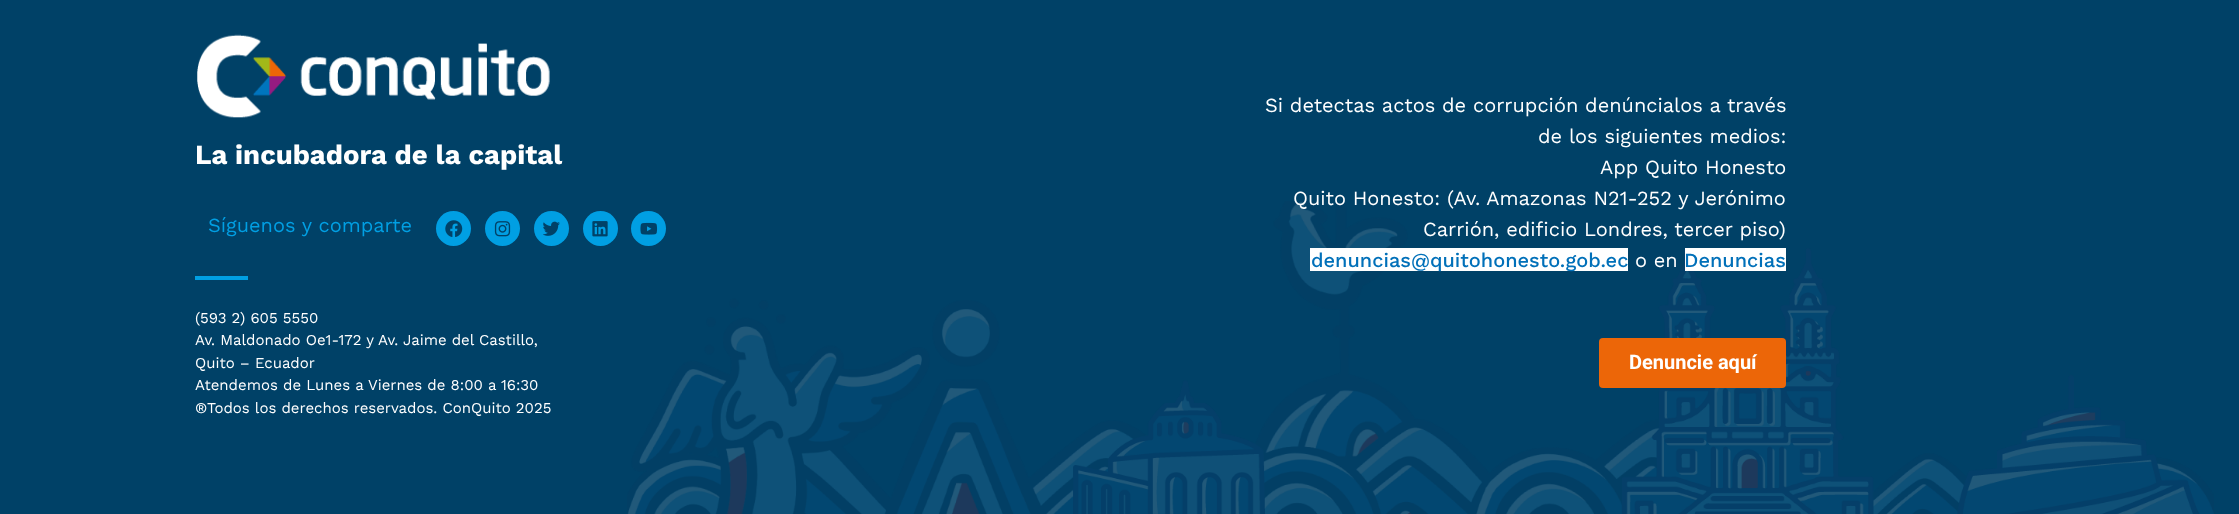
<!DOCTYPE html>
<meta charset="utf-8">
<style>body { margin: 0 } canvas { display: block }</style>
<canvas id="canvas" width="2239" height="514"></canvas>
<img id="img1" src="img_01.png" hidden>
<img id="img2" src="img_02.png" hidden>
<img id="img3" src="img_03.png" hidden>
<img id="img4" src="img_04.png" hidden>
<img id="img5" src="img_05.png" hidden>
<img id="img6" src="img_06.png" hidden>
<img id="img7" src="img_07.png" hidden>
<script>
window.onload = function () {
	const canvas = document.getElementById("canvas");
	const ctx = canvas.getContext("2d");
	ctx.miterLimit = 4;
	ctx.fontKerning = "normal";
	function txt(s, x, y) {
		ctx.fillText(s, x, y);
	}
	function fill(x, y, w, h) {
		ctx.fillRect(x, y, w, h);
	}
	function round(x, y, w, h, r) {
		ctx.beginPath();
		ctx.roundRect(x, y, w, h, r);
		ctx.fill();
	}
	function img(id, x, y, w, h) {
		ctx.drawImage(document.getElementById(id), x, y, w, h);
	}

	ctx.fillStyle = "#004167";
	fill(0, 0, 2239, 514);
	img("img1", 627, 201, 1587, 313);
	img("img2", 197, 34, 353, 84);
	ctx.fillStyle = "#009FE3";
	ctx.beginPath();
	ctx.arc(453.5, 228.5, 17.5, 0, Math.PI * 2);
	ctx.fill();
	img("img3", 445, 220, 18, 17);
	ctx.beginPath();
	ctx.arc(502.5, 228.5, 17.5, 0, Math.PI * 2);
	ctx.fill();
	img("img4", 494, 221, 17, 16);
	ctx.beginPath();
	ctx.arc(551.5, 228.5, 17.5, 0, Math.PI * 2);
	ctx.fill();
	img("img5", 543, 221, 17, 15);
	ctx.beginPath();
	ctx.arc(600.5, 228.5, 17.5, 0, Math.PI * 2);
	ctx.fill();
	img("img6", 592, 221, 16, 16);
	ctx.beginPath();
	ctx.arc(648.5, 228.5, 17.5, 0, Math.PI * 2);
	ctx.fill();
	img("img7", 640, 222, 18, 13);
	fill(195, 276, 53, 4);
	ctx.fillStyle = "#FFFFFF";
	fill(1310, 248, 318, 23);
	fill(1685, 248, 101, 23);
	ctx.fillStyle = "#EC6608";
	round(1599, 338, 187, 50, 4);
	ctx.font = "bold 27.5px Work Sans";
	ctx.fillStyle = "#FFFFFF";
	txt("La incubadora de la capital", 195, 164);
	ctx.font = "20px Work Sans";
	ctx.fillStyle = "#009FE3";
	txt("Síguenos y comparte", 208, 232);
	ctx.font = "15px Work Sans";
	ctx.fillStyle = "#FFFFFF";
	txt("(593 2) 605 5550", 195, 323);
	txt("Av. Maldonado Oe1-172 y Av. Jaime del Castillo,", 195, 345);
	txt("Quito – Ecuador", 195, 368);
	txt("Atendemos de Lunes a Viernes de 8:00 a 16:30", 195, 390);
	txt("®Todos los derechos reservados. ConQuito 2025", 195, 413);
	ctx.font = "20px Work Sans";
	txt("Si detectas actos de corrupción denúncialos a través", 1265, 112);
	txt("de los siguientes medios:", 1538, 143);
	txt("App Quito Honesto", 1600, 174);
	txt("Quito Honesto: (Av. Amazonas N21-252 y Jerónimo", 1293, 205);
	txt("Carrión, edificio Londres, tercer piso)", 1423, 236);
	ctx.font = "500 20px Work Sans";
	ctx.fillStyle = "#0170B9";
	txt("denuncias@quitohonesto.gob.ec", 1311, 267);
	ctx.font = "20px Work Sans";
	ctx.fillStyle = "#FFFFFF";
	txt("o en", 1635, 267);
	ctx.font = "500 20px Work Sans";
	ctx.fillStyle = "#0170B9";
	txt("Denuncias", 1684, 267);
	ctx.font = "bold 20px Roboto";
	ctx.fillStyle = "#FFFFFF";
	txt("Denuncie aquí", 1629, 369);
};
</script>
